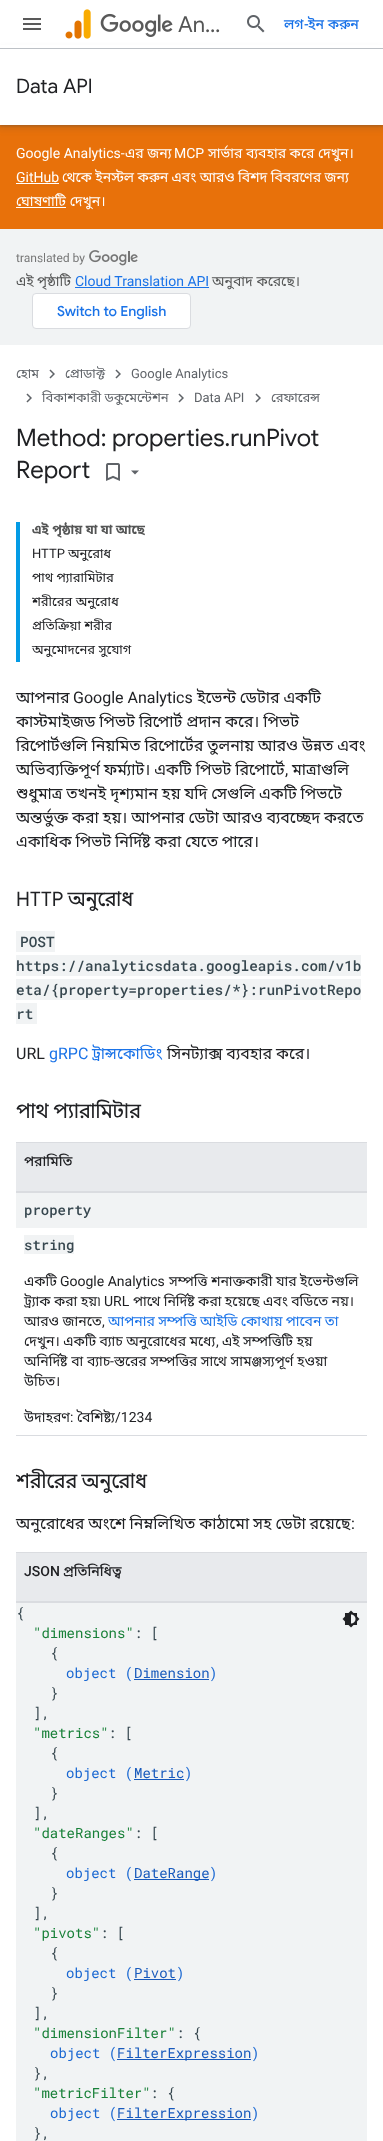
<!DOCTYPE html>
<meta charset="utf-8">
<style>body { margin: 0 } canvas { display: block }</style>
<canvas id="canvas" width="383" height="2141"></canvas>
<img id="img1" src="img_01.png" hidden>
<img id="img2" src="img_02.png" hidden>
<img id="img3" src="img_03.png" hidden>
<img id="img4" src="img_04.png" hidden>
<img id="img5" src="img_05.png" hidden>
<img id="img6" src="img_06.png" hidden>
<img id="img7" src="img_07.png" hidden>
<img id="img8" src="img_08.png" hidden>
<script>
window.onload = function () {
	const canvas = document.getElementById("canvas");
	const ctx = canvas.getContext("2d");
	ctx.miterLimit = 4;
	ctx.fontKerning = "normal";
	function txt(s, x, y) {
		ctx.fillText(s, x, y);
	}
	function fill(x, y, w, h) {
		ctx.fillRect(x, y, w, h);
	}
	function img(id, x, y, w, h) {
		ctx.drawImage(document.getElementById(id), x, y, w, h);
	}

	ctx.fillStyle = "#FFFFFF";
	fill(0, 0, 383, 2141);
	ctx.fillStyle = "#E8710A";
	fill(0, 125, 383, 104);
	ctx.fillStyle = "rgba(60, 64, 67, 0.15)";
	ctx.filter = "blur(3px)";
	ctx.beginPath();
	ctx.rect(-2, 49, 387, 80);
	ctx.fill();
	ctx.filter = "none";
	ctx.fillStyle = "rgba(60, 64, 67, 0.3)";
	ctx.filter = "blur(1px)";
	ctx.beginPath();
	ctx.rect(0, 50, 383, 76);
	ctx.fill();
	ctx.filter = "none";
	ctx.fillStyle = "#FFFFFF";
	fill(0, 45, 383, 3);
	ctx.fillStyle = "#BDC1C6";
	fill(0, 48, 383, 1);
	img("img1", 23, 18, 18, 12);
	img("img2", 65, 9, 26, 30);
	img("img3", 100, 13, 73, 24);
	img("img4", 247, 15, 18, 18);
	ctx.fillStyle = "#FFFFFF";
	fill(0, 49, 383, 76);
	fill(16, 183, 43, 1);
	fill(16, 207, 50, 1);
	ctx.fillStyle = "#F1F3F4";
	fill(0, 229, 383, 116);
	img("img5", 16, 250, 122, 16);
	ctx.fillStyle = "#1A73E8";
	fill(75, 287, 134, 1);
	ctx.fillStyle = "#FFFFFF";
	ctx.beginPath();
	ctx.roundRect(32.5, 293.5, 158, 35, 3.5);
	ctx.fill();
	ctx.strokeStyle = "#DADCE0";
	ctx.stroke();
	img("img6", 49, 369, 6, 10);
	img("img6", 115, 369, 6, 10);
	img("img6", 26, 393, 6, 10);
	img("img6", 178, 393, 6, 10);
	img("img6", 255, 393, 6, 10);
	img("img7", 106, 463, 14, 18);
	ctx.fillStyle = "#5F6368";
	ctx.beginPath();
	ctx.moveTo(131, 470.5);
	ctx.lineTo(139, 470.5);
	ctx.lineTo(135, 474.5);
	ctx.closePath();
	ctx.fill();
	ctx.fillStyle = "#039BE5";
	fill(16, 522, 4, 140);
	ctx.fillStyle = "#F1F3F4";
	fill(16, 931, 39, 21);
	fill(16, 955, 345, 21);
	fill(16, 979, 345, 21);
	fill(16, 1003, 21, 21);
	ctx.fillStyle = "#DADCE0";
	fill(16, 1142, 351, 1);
	fill(16, 1191, 351, 2);
	ctx.fillStyle = "#E8EAED";
	fill(16, 1143, 351, 48);
	ctx.fillStyle = "#DADCE0";
	fill(16, 1435, 351, 1);
	ctx.fillStyle = "#F1F3F4";
	fill(16, 1193, 351, 35);
	fill(24, 1235, 50, 19);
	ctx.fillStyle = "#DADCE0";
	fill(16, 1552, 351, 1);
	fill(16, 1601, 351, 2);
	ctx.fillStyle = "#E8EAED";
	fill(16, 1553, 351, 48);
	ctx.fillStyle = "#F1F3F4";
	fill(16, 1603, 351, 538);
	ctx.fillStyle = "#185ABC";
	fill(134, 1679, 75, 1);
	fill(134, 1779, 50, 1);
	fill(134, 1879, 75, 1);
	fill(134, 1979, 42, 1);
	fill(117, 2059, 134, 1);
	fill(117, 2119, 134, 1);
	img("img8", 342, 1610, 18, 18);
	ctx.font = "22px Google Sans";
	ctx.fillStyle = "#545555";
	txt("An…", 178, 32);
	ctx.font = "500 14px Noto Sans Bengali";
	ctx.fillStyle = "#1A73E8";
	txt("লগ", 284, 29);
	ctx.font = "500 14px Roboto";
	txt("-", 304, 29);
	ctx.font = "500 14px Noto Sans Bengali";
	txt("ইন করুন", 308, 29);
	ctx.font = "20px Google Sans";
	ctx.fillStyle = "#202124";
	txt("Data API", 16, 93);
	ctx.font = "14px Roboto";
	ctx.fillStyle = "#FFFFFF";
	txt("Google Analytics-", 16, 158);
	ctx.font = "14px Noto Sans Bengali";
	txt("এর জন্য", 125, 158);
	ctx.font = "14px Roboto";
	txt("MCP", 174, 158);
	ctx.font = "14px Noto Sans Bengali";
	txt("সার্ভার ব্যবহার করে দেখুন।", 208, 158);
	ctx.font = "14px Roboto";
	txt("GitHub", 16, 182);
	ctx.wordSpacing = "-0.25px";
	ctx.font = "14px Noto Sans Bengali";
	txt("থেকে ইনস্টল করুন এবং আরও বিশদ বিবরণের জন্য", 62, 182);
	ctx.wordSpacing = "0px";
	txt("ঘোষণাটি দেখুন।", 16, 206);
	ctx.wordSpacing = "-0.25px";
	ctx.fillStyle = "#545555";
	txt("এই পৃষ্ঠাটি", 16, 286);
	ctx.wordSpacing = "0px";
	ctx.font = "14px Roboto";
	ctx.fillStyle = "#1A73E8";
	txt("Cloud Translation API", 75, 286);
	ctx.font = "14px Noto Sans Bengali";
	ctx.fillStyle = "#545555";
	txt("অনুবাদ করেছে।", 212, 286);
	ctx.font = "500 14px Google Sans";
	ctx.fillStyle = "#1A73E8";
	txt("Switch to English", 57, 316);
	ctx.font = "13px Noto Sans Bengali";
	ctx.fillStyle = "#5F6368";
	txt("হোম", 16, 378);
	txt("প্রোডাক্ট", 65, 378);
	ctx.font = "13px Roboto";
	txt("Google Analytics", 131, 378);
	ctx.font = "13px Noto Sans Bengali";
	txt("বিকাশকারী ডকুমেন্টেশন", 42, 402);
	ctx.font = "13px Roboto";
	txt("Data API", 194, 402);
	ctx.font = "13px Noto Sans Bengali";
	txt("রেফারেন্স", 271, 402);
	ctx.font = "24px Google Sans";
	ctx.fillStyle = "#202124";
	txt("Method: properties.runPivot", 16, 446);
	txt("Report", 16, 478);
	ctx.font = "bold 13px Noto Sans Bengali";
	ctx.fillStyle = "#545555";
	txt("এই পৃষ্ঠায় যা যা আছে", 32, 534);
	ctx.font = "13px Roboto";
	ctx.fillStyle = "#202124";
	txt("HTTP", 32, 558);
	ctx.font = "13px Noto Sans Bengali";
	txt("অনুরোধ", 68, 558);
	txt("পাথ প্যারামিটার", 32, 582);
	txt("শরীরের অনুরোধ", 32, 606);
	ctx.save();
	ctx.beginPath();
	ctx.rect(32, 0, 80, 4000);
	ctx.clip();
	txt("প্রতিক্রিয়া শরীর", 32, 630);
	ctx.restore();
	txt("অনুমোদনের সুযোগ", 32, 654);
	ctx.font = "16px Noto Sans Bengali";
	txt("আপনার", 16, 703);
	ctx.font = "16px Roboto";
	txt("Google Analytics", 73, 703);
	ctx.wordSpacing = "-0.25px";
	ctx.font = "16px Noto Sans Bengali";
	txt("ইভেন্ট ডেটার একটি", 197, 703);
	txt("কাস্টমাইজড পিভট রিপোর্ট প্রদান করে। পিভট", 16, 727);
	txt("রিপোর্টগুলি নিয়মিত রিপোর্টের তুলনায় আরও উন্নত এবং", 16, 751);
	txt("অভিব্যক্তিপূর্ণ ফর্ম্যাট। একটি পিভট রিপোর্টে", 16, 775);
	ctx.wordSpacing = "0px";
	txt("মাত্রাগুলি", 292, 775);
	ctx.font = "16px Roboto";
	txt(",", 285, 775);
	ctx.wordSpacing = "-0.25px";
	ctx.font = "16px Noto Sans Bengali";
	txt("শুধুমাত্র তখনই দৃশ্যমান হয় যদি সেগুলি একটি পিভটে", 16, 799);
	txt("অন্তর্ভুক্ত করা হয়। আপনার ডেটা আরও ব্যবচ্ছেদ করতে", 16, 823);
	txt("একাধিক পিভট নির্দিষ্ট করা যেতে পারে।", 16, 847);
	ctx.wordSpacing = "0px";
	ctx.font = "20px Google Sans";
	txt("HTTP অনুরোধ", 16, 906);
	ctx.font = "500 14.4px Roboto Mono";
	ctx.fillStyle = "#37474F";
	txt("POST", 20, 947);
	txt("https://analyticsdata.googleapis.com/v1b", 16, 971);
	txt("eta/{property=properties/*}:runPivotRepo", 16, 995);
	txt("rt", 16, 1019);
	ctx.font = "16px Roboto";
	ctx.fillStyle = "#202124";
	txt("URL", 16, 1059);
	ctx.fillStyle = "#1A73E8";
	txt("gRPC", 49, 1059);
	ctx.font = "16px Noto Sans Bengali";
	txt("ট্রান্সকোডিং", 92, 1059);
	ctx.wordSpacing = "-0.25px";
	ctx.fillStyle = "#202124";
	txt("সিনট্যাক্স ব্যবহার করে।", 167, 1059);
	ctx.save();
	ctx.beginPath();
	ctx.rect(16, 0, 351, 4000);
	ctx.clip();
	ctx.wordSpacing = "0px";
	ctx.font = "20px Google Sans";
	txt("পাথ প্যারামিটার", 16, 1118);
	ctx.restore();
	ctx.wordSpacing = "0px";
	ctx.font = "500 14px Noto Sans Bengali";
	txt("পরামিতি", 24, 1166);
	ctx.font = "500 14px Roboto Mono";
	ctx.fillStyle = "#37474F";
	txt("property", 24, 1215);
	txt("string", 24, 1250);
	ctx.font = "14px Noto Sans Bengali";
	ctx.fillStyle = "#202124";
	txt("একটি", 24, 1286);
	ctx.font = "14px Roboto";
	txt("Google Analytics", 60, 1286);
	ctx.wordSpacing = "-0.25px";
	ctx.font = "14px Noto Sans Bengali";
	txt("সম্পত্তি শনাক্তকারী যার ইভেন্টগুলি", 169, 1286);
	txt("ট্র্যাক করা হয়৷", 24, 1306);
	ctx.wordSpacing = "0px";
	ctx.font = "14px Roboto";
	txt("URL", 104, 1306);
	ctx.wordSpacing = "-0.25px";
	ctx.font = "14px Noto Sans Bengali";
	txt("পাথে নির্দিষ্ট করা হয়েছে এবং বডিতে নয়।", 133, 1306);
	ctx.wordSpacing = "0px";
	txt("আরও জানতে", 24, 1326);
	ctx.font = "14px Roboto";
	txt(",", 102, 1326);
	ctx.wordSpacing = "-0.25px";
	ctx.font = "14px Noto Sans Bengali";
	ctx.fillStyle = "#1A73E8";
	txt("আপনার সম্পত্তি আইডি কোথায় পাবেন তা", 108, 1326);
	ctx.fillStyle = "#202124";
	txt("দেখুন। একটি ব্যাচ অনুরোধের মধ্যে", 24, 1346);
	ctx.wordSpacing = "0px";
	ctx.font = "14px Roboto";
	txt(",", 216, 1346);
	ctx.wordSpacing = "-0.25px";
	ctx.font = "14px Noto Sans Bengali";
	txt("এই সম্পত্তিটি হয়", 222, 1346);
	ctx.wordSpacing = "0px";
	txt("অনির্দিষ্ট বা ব্যাচ", 24, 1366);
	ctx.font = "14px Roboto";
	txt("-", 110, 1366);
	ctx.font = "14px Noto Sans Bengali";
	txt("স্তরের সম্পত্তির সাথে সামঞ্জস্যপূর্ণ হওয়া", 114, 1366);
	txt("উচিত।", 24, 1386);
	txt("উদাহরণ", 24, 1422);
	ctx.font = "14px Roboto";
	txt(":", 70, 1422);
	ctx.font = "14px Noto Sans Bengali";
	txt("বৈশিষ্ট্য", 77, 1422);
	ctx.font = "14px Roboto";
	txt("/1234", 115, 1422);
	ctx.save();
	ctx.beginPath();
	ctx.rect(16, 0, 351, 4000);
	ctx.clip();
	ctx.font = "20px Google Sans";
	txt("শরীরের অনুরোধ", 16, 1488);
	ctx.restore();
	ctx.wordSpacing = "-0.25px";
	ctx.font = "16px Noto Sans Bengali";
	txt("অনুরোধের অংশে নিম্নলিখিত কাঠামো সহ ডেটা রয়েছে", 16, 1529);
	ctx.wordSpacing = "0px";
	ctx.font = "16px Roboto";
	txt(":", 351, 1529);
	ctx.font = "500 14px Roboto";
	txt("JSON", 24, 1576);
	ctx.font = "500 14px Noto Sans Bengali";
	txt("প্রতিনিধিত্ব", 63, 1576);
	ctx.font = "14px Roboto Mono";
	ctx.fillStyle = "#37474F";
	txt("{", 16, 1618);
	ctx.fillStyle = "#188038";
	txt("\"dimensions\"", 33, 1638);
	ctx.fillStyle = "#37474F";
	txt(": [", 134, 1638);
	txt("{", 50, 1658);
	ctx.fillStyle = "#1967D2";
	txt("object (", 66, 1678);
	ctx.fillStyle = "#185ABC";
	txt("Dimension", 134, 1678);
	ctx.fillStyle = "#1967D2";
	txt(")", 209, 1678);
	ctx.fillStyle = "#37474F";
	txt("}", 50, 1698);
	txt("],", 33, 1718);
	ctx.fillStyle = "#188038";
	txt("\"metrics\"", 33, 1738);
	ctx.fillStyle = "#37474F";
	txt(": [", 108, 1738);
	txt("{", 50, 1758);
	ctx.fillStyle = "#1967D2";
	txt("object (", 66, 1778);
	ctx.fillStyle = "#185ABC";
	txt("Metric", 134, 1778);
	ctx.fillStyle = "#1967D2";
	txt(")", 184, 1778);
	ctx.fillStyle = "#37474F";
	txt("}", 50, 1798);
	txt("],", 33, 1818);
	ctx.fillStyle = "#188038";
	txt("\"dateRanges\"", 33, 1838);
	ctx.fillStyle = "#37474F";
	txt(": [", 134, 1838);
	txt("{", 50, 1858);
	ctx.fillStyle = "#1967D2";
	txt("object (", 66, 1878);
	ctx.fillStyle = "#185ABC";
	txt("DateRange", 134, 1878);
	ctx.fillStyle = "#1967D2";
	txt(")", 209, 1878);
	ctx.fillStyle = "#37474F";
	txt("}", 50, 1898);
	txt("],", 33, 1918);
	ctx.fillStyle = "#188038";
	txt("\"pivots\"", 33, 1938);
	ctx.fillStyle = "#37474F";
	txt(": [", 100, 1938);
	txt("{", 50, 1958);
	ctx.fillStyle = "#1967D2";
	txt("object (", 66, 1978);
	ctx.fillStyle = "#185ABC";
	txt("Pivot", 134, 1978);
	ctx.fillStyle = "#1967D2";
	txt(")", 176, 1978);
	ctx.fillStyle = "#37474F";
	txt("}", 50, 1998);
	txt("],", 33, 2018);
	ctx.fillStyle = "#188038";
	txt("\"dimensionFilter\"", 33, 2038);
	ctx.fillStyle = "#37474F";
	txt(": {", 176, 2038);
	ctx.fillStyle = "#1967D2";
	txt("object (", 50, 2058);
	ctx.fillStyle = "#185ABC";
	txt("FilterExpression", 117, 2058);
	ctx.fillStyle = "#1967D2";
	txt(")", 251, 2058);
	ctx.fillStyle = "#37474F";
	txt("},", 33, 2078);
	ctx.fillStyle = "#188038";
	txt("\"metricFilter\"", 33, 2098);
	ctx.fillStyle = "#37474F";
	txt(": {", 150, 2098);
	ctx.fillStyle = "#1967D2";
	txt("object (", 50, 2118);
	ctx.fillStyle = "#185ABC";
	txt("FilterExpression", 117, 2118);
	ctx.fillStyle = "#1967D2";
	txt(")", 251, 2118);
	ctx.fillStyle = "#37474F";
	txt("},", 33, 2138);
};
</script>
